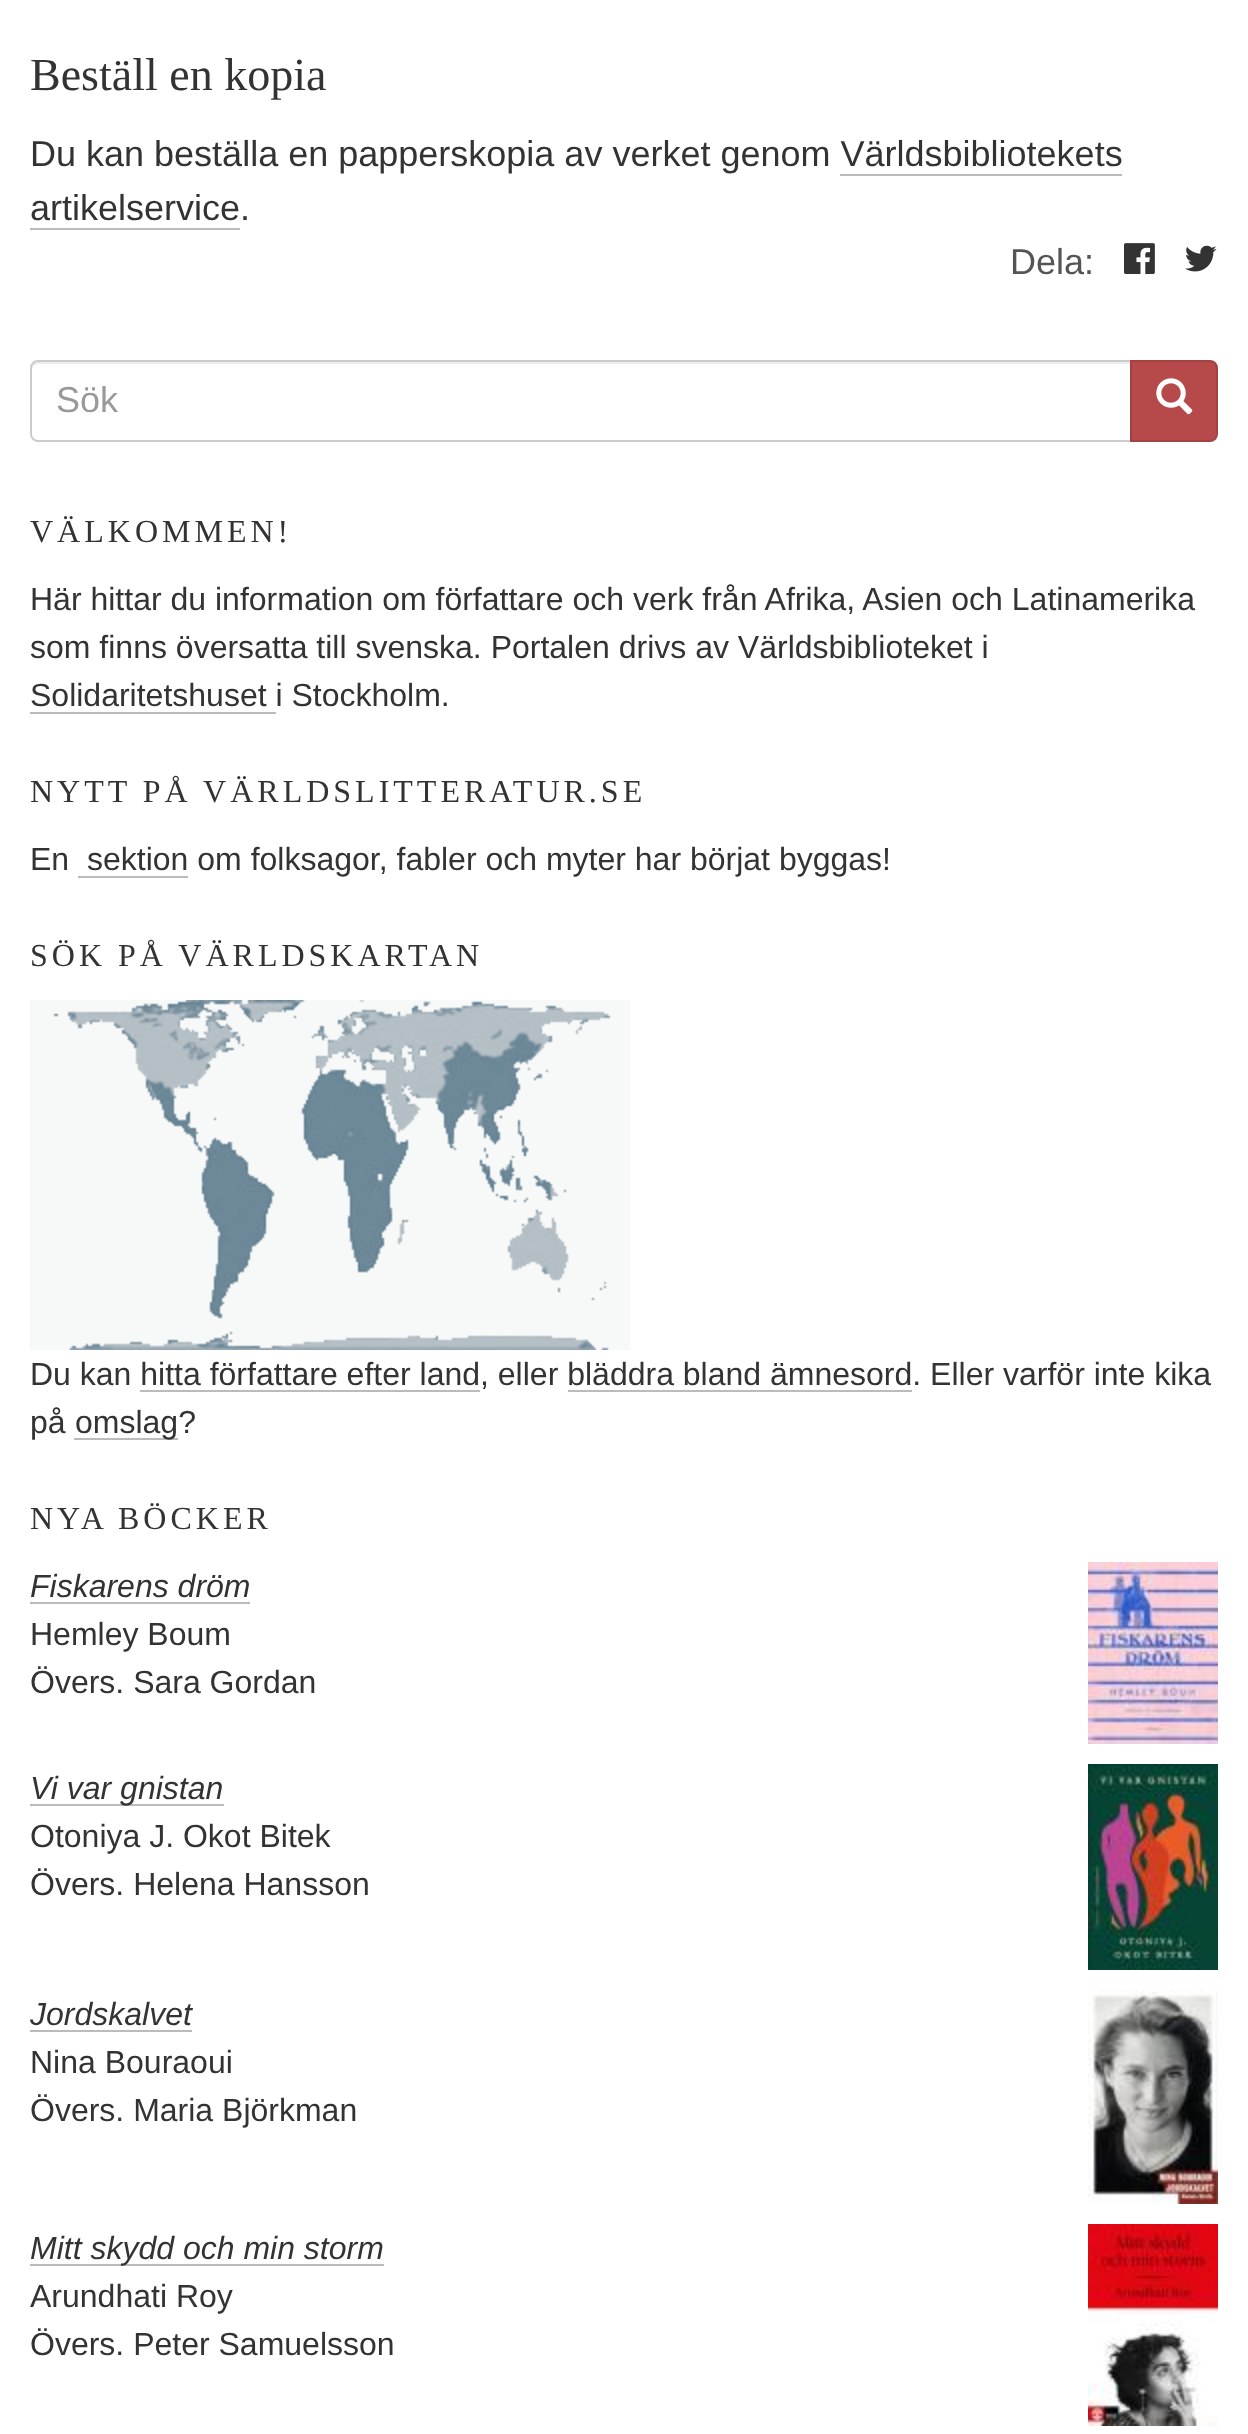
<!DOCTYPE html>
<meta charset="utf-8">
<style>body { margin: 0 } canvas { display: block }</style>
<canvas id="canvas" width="1248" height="2434"></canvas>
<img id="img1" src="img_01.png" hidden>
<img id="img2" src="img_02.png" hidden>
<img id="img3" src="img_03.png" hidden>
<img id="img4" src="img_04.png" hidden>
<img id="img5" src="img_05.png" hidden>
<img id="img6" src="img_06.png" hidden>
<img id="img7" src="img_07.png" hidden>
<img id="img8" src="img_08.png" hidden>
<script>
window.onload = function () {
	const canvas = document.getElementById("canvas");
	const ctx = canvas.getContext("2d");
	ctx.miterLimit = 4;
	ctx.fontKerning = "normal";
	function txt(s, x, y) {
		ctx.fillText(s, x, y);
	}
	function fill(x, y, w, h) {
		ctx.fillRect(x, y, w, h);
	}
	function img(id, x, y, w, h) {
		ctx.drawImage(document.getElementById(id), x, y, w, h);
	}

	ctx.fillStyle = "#FFFFFF";
	fill(0, 0, 1248, 2434);
	ctx.fillStyle = "#BBBBBB";
	fill(840, 174, 282, 2);
	fill(30, 228, 210, 2);
	img("img1", 1124, 243, 31, 31);
	img("img2", 1185, 245, 32, 27);
	ctx.fillStyle = "#ECECEC";
	ctx.beginPath();
	ctx.moveTo(38, 364);
	ctx.lineTo(1130, 364);
	ctx.lineTo(1130, 362);
	ctx.lineTo(38, 362);
	ctx.bezierCurveTo(33, 362, 32, 366, 32, 370);
	ctx.bezierCurveTo(32, 367, 35, 364, 38, 364);
	ctx.closePath();
	ctx.fill();
	ctx.beginPath();
	ctx.roundRect(31, 361, 1100, 80, [7, 0, 0, 7]);
	ctx.strokeStyle = "#CCCCCC";
	ctx.lineWidth = 2;
	ctx.stroke();
	ctx.fillStyle = "#B64A4A";
	ctx.beginPath();
	ctx.roundRect(1131, 361, 86, 80, [0, 7, 7, 0]);
	ctx.fill();
	ctx.strokeStyle = "#A44242";
	ctx.stroke();
	img("img3", 1156, 378, 37, 37);
	ctx.fillStyle = "#BBBBBB";
	fill(30, 712, 246, 2);
	fill(78, 876, 110, 2);
	img("img4", 30, 1000, 600, 350);
	fill(140, 1390, 340, 2);
	fill(568, 1390, 344, 2);
	fill(74, 1438, 104, 2);
	fill(30, 1602, 220, 2);
	img("img5", 1088, 1562, 130, 182);
	fill(30, 1804, 194, 2);
	img("img6", 1088, 1764, 130, 206);
	fill(30, 2030, 162, 2);
	img("img7", 1088, 1990, 130, 214);
	fill(30, 2264, 354, 2);
	img("img8", 1088, 2224, 130, 202);
	ctx.font = "46px Liberation Serif";
	ctx.fillStyle = "#333333";
	txt("Beställ en kopia", 30, 90);
	ctx.font = "36px Liberation Sans";
	txt("Du kan beställa en papperskopia av verket genom Världsbibliotekets", 30, 166);
	txt("artikelservice.", 30, 220);
	ctx.fillStyle = "#555555";
	txt("Dela:", 1010, 274);
	ctx.fillStyle = "#999999";
	txt("Sök", 56, 412);
	ctx.letterSpacing = "4px";
	ctx.font = "32px Liberation Serif";
	ctx.fillStyle = "#333333";
	txt("VÄLKOMMEN!", 30, 542);
	ctx.letterSpacing = "0px";
	ctx.font = "32px Liberation Sans";
	txt("Här hittar du information om författare och verk från Afrika, Asien och Latinamerika", 30, 610);
	txt("som finns översatta till svenska. Portalen drivs av Världsbiblioteket i", 30, 658);
	txt("Solidaritetshuset i Stockholm.", 30, 706);
	ctx.letterSpacing = "4px";
	ctx.font = "32px Liberation Serif";
	txt("NYTT PÅ VÄRLDSLITTERATUR.SE", 30, 802);
	ctx.letterSpacing = "0px";
	ctx.font = "32px Liberation Sans";
	txt("En", 30, 870);
	txt("sektion om folksagor, fabler och myter har börjat byggas!", 87, 870);
	ctx.letterSpacing = "4px";
	ctx.font = "32px Liberation Serif";
	txt("SÖK PÅ VÄRLDSKARTAN", 30, 966);
	ctx.letterSpacing = "0px";
	ctx.font = "32px Liberation Sans";
	txt("Du kan hitta författare efter land, eller bläddra bland ämnesord. Eller varför inte kika", 30, 1385);
	txt("på", 30, 1433);
	txt("omslag?", 75, 1433);
	ctx.letterSpacing = "4px";
	ctx.font = "32px Liberation Serif";
	txt("NYA BÖCKER", 30, 1529);
	ctx.letterSpacing = "0px";
	ctx.font = "italic 32px Liberation Sans";
	txt("Fiskarens dröm", 30, 1597);
	ctx.font = "32px Liberation Sans";
	txt("Hemley Boum", 30, 1645);
	txt("Övers. Sara Gordan", 30, 1693);
	ctx.font = "italic 32px Liberation Sans";
	txt("Vi var gnistan", 30, 1799);
	ctx.font = "32px Liberation Sans";
	txt("Otoniya J. Okot Bitek", 30, 1847);
	txt("Övers. Helena Hansson", 30, 1895);
	ctx.font = "italic 32px Liberation Sans";
	txt("Jordskalvet", 30, 2025);
	ctx.font = "32px Liberation Sans";
	txt("Nina Bouraoui", 30, 2073);
	txt("Övers. Maria Björkman", 30, 2121);
	ctx.font = "italic 32px Liberation Sans";
	txt("Mitt skydd och min storm", 30, 2259);
	ctx.font = "32px Liberation Sans";
	txt("Arundhati Roy", 30, 2307);
	txt("Övers. Peter Samuelsson", 30, 2355);
};
</script>
